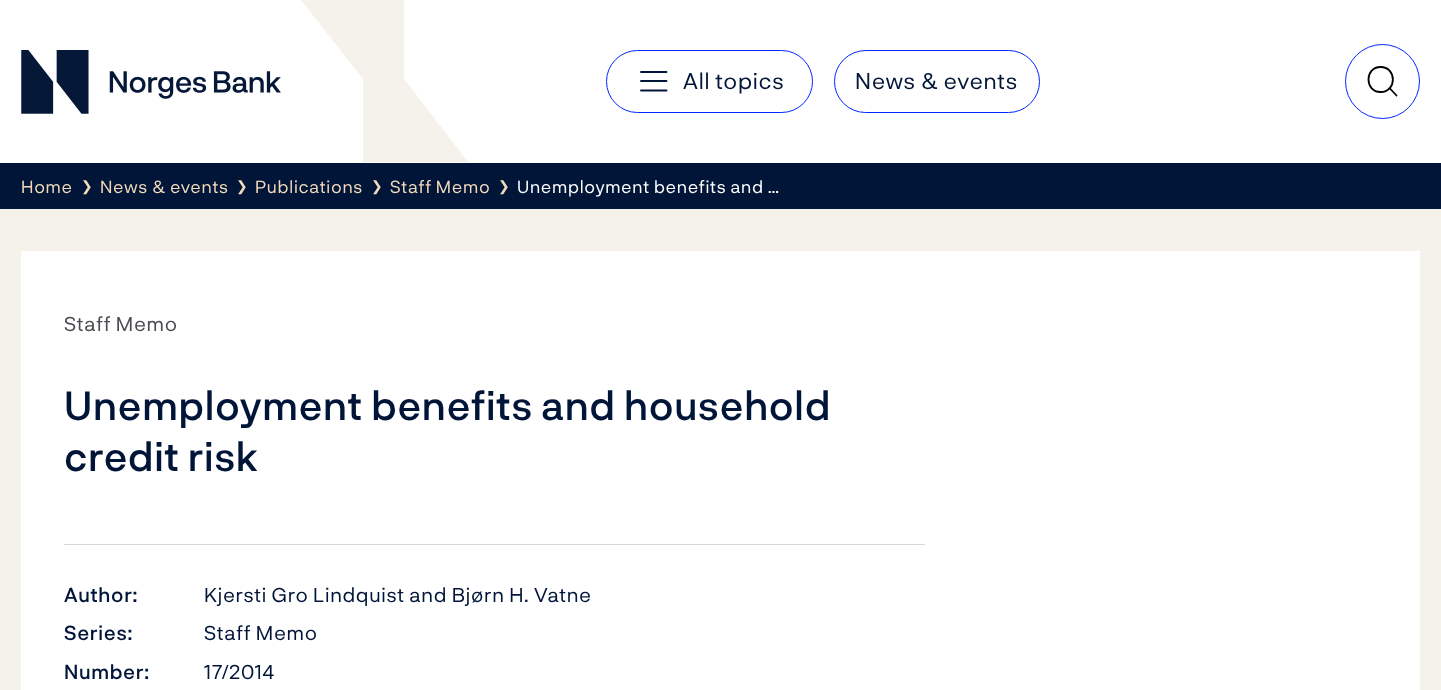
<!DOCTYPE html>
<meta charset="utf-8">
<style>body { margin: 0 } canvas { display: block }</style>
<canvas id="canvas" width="1441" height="690"></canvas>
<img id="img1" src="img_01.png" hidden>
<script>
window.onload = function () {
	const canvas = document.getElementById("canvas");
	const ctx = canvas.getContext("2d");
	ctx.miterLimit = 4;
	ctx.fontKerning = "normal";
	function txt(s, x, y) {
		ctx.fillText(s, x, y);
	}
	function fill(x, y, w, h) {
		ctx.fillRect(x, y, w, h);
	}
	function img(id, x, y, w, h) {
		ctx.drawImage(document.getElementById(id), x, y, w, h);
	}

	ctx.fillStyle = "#F5F2EB";
	fill(0, 0, 1441, 690);
	ctx.fillStyle = "#FFFFFF";
	fill(0, 0, 1441, 163);
	img("img1", 21, 50, 260, 64);
	ctx.fillStyle = "#F5F2EB";
	ctx.beginPath();
	ctx.moveTo(301, 0);
	ctx.lineTo(363, 79);
	ctx.lineTo(363, 162);
	ctx.lineTo(468, 162);
	ctx.lineTo(404, 79);
	ctx.lineTo(404, 0);
	ctx.closePath();
	ctx.fill();
	ctx.beginPath();
	ctx.roundRect(606.5, 50.5, 206, 62, 31);
	ctx.strokeStyle = "#0026FF";
	ctx.stroke();
	ctx.beginPath();
	ctx.moveTo(641, 81);
	ctx.lineTo(666.5, 81);
	ctx.moveTo(641, 72);
	ctx.lineTo(666.5, 72);
	ctx.moveTo(641, 90.5);
	ctx.lineTo(666.5, 90.5);
	ctx.strokeStyle = "#001538";
	ctx.lineWidth = 1.9;
	ctx.lineCap = "round";
	ctx.lineJoin = "round";
	ctx.stroke();
	ctx.beginPath();
	ctx.roundRect(834.5, 50.5, 205, 62, 31);
	ctx.strokeStyle = "#0026FF";
	ctx.lineWidth = 1;
	ctx.lineJoin = "miter";
	ctx.stroke();
	ctx.beginPath();
	ctx.arc(1382.5, 81.5, 37, 0, Math.PI * 2);
	ctx.stroke();
	ctx.beginPath();
	ctx.moveTo(1380.5, 92);
	ctx.bezierCurveTo(1397, 92, 1397, 67, 1380.5, 67);
	ctx.bezierCurveTo(1364.5, 67, 1364.5, 92, 1380.5, 92);
	ctx.closePath();
	ctx.moveTo(1389.5, 88);
	ctx.lineTo(1396.5, 95.5);
	ctx.strokeStyle = "#000000";
	ctx.lineWidth = 1.8;
	ctx.lineJoin = "round";
	ctx.stroke();
	ctx.fillStyle = "#001538";
	fill(0, 163, 1441, 46);
	ctx.fillStyle = "#FFFFFF";
	fill(21, 251, 1399, 439);
	ctx.fillStyle = "#D7D7D7";
	fill(64, 544, 861, 1);
	ctx.letterSpacing = "0.7px";
	ctx.font = "22.5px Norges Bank";
	ctx.fillStyle = "#001538";
	txt("All topics", 683, 89);
	txt("News & events", 855, 89);
	ctx.font = "17.5px Norges Bank";
	ctx.fillStyle = "#F2DABB";
	txt("Home", 21, 193);
	ctx.font = "14px DejaVu Sans";
	txt("❯", 81, 191);
	ctx.font = "17.5px Norges Bank";
	txt("News & events", 100, 193);
	ctx.font = "14px DejaVu Sans";
	txt("❯", 236, 191);
	ctx.font = "17.5px Norges Bank";
	txt("Publications", 255, 193);
	ctx.font = "14px DejaVu Sans";
	txt("❯", 371, 191);
	ctx.font = "17.5px Norges Bank";
	txt("Staff Memo", 390, 193);
	ctx.font = "14px DejaVu Sans";
	txt("❯", 498, 191);
	ctx.font = "17.5px Norges Bank";
	ctx.fillStyle = "#FFFFFF";
	txt("Unemployment benefits and …", 517, 193);
	ctx.font = "20px Norges Bank";
	ctx.fillStyle = "#494C50";
	txt("Staff Memo", 64, 331);
	ctx.font = "500 40px Norges Bank";
	ctx.fillStyle = "#001538";
	txt("Unemployment benefits and household", 64, 420);
	txt("credit risk", 64, 471);
	ctx.font = "500 20px Norges Bank";
	txt("Author:", 64, 602);
	ctx.font = "20px Norges Bank";
	txt("Kjersti Gro Lindquist and Bjørn H. Vatne", 204, 602);
	ctx.font = "500 20px Norges Bank";
	txt("Series:", 64, 640);
	ctx.font = "20px Norges Bank";
	txt("Staff Memo", 204, 640);
	ctx.font = "500 20px Norges Bank";
	txt("Number:", 64, 679);
	ctx.font = "20px Norges Bank";
	txt("17/2014", 204, 679);
};
</script>
